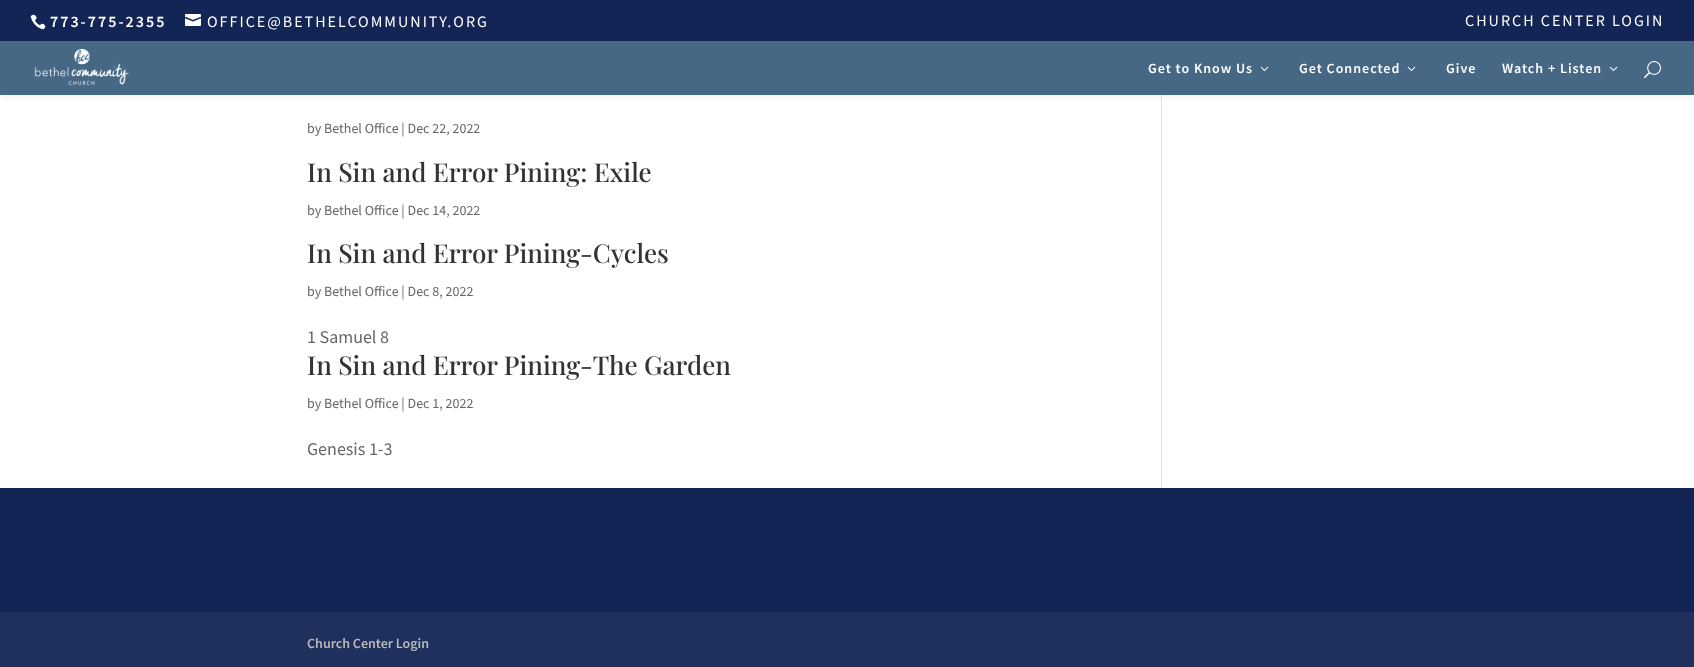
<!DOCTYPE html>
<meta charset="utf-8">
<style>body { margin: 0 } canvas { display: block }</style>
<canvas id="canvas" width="1694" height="667"></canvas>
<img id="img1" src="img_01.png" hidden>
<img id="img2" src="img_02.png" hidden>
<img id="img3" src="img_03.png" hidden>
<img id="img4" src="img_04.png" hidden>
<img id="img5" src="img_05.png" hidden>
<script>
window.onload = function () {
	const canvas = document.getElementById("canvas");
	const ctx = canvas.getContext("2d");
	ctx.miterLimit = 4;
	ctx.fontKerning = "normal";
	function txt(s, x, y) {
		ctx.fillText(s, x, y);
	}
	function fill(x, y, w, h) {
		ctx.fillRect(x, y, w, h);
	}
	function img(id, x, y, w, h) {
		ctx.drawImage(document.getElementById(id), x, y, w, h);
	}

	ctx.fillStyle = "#FFFFFF";
	fill(0, 0, 1694, 667);
	ctx.fillStyle = "#E2E2E2";
	fill(1161, 95, 1, 393);
	ctx.fillStyle = "rgba(0, 0, 0, 0.1)";
	ctx.filter = "blur(3.5px)";
	ctx.beginPath();
	ctx.rect(0, 41, 1694, 54);
	ctx.fill();
	ctx.filter = "none";
	ctx.fillStyle = "#132554";
	fill(0, 0, 1694, 41);
	img("img1", 30, 14, 16, 16);
	img("img2", 185, 14, 16, 12);
	ctx.fillStyle = "#466885";
	fill(0, 41, 1694, 54);
	img("img3", 34, 48, 96, 38);
	img("img4", 1260, 66, 9, 5);
	img("img4", 1407, 66, 9, 5);
	img("img4", 1609, 66, 9, 5);
	img("img5", 1644, 61, 17, 18);
	ctx.fillStyle = "#132554";
	fill(0, 488, 1694, 124);
	ctx.fillStyle = "#1F305D";
	fill(0, 612, 1694, 55);
	ctx.letterSpacing = "2px";
	ctx.font = "600 16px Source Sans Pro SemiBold";
	ctx.fillStyle = "#FFFFFF";
	txt("773-775-2355", 50, 27);
	ctx.font = "16px Source Sans Pro";
	txt("OFFICE@BETHELCOMMUNITY.ORG", 207, 27);
	txt("CHURCH CENTER LOGIN", 1465, 26);
	ctx.letterSpacing = "1px";
	ctx.font = "600 14px Source Sans Pro SemiBold";
	txt("Get to Know Us", 1148, 73);
	txt("Get Connected", 1299, 73);
	txt("Give", 1446, 73);
	txt("Watch + Listen", 1502, 73);
	ctx.letterSpacing = "0px";
	ctx.font = "14px Source Sans Pro";
	ctx.fillStyle = "#666666";
	txt("by Bethel Office | Dec 22, 2022", 307, 133);
	ctx.font = "500 26px Playfair Display";
	ctx.fillStyle = "#333333";
	txt("In Sin and Error Pining: Exile", 307, 182);
	ctx.font = "14px Source Sans Pro";
	ctx.fillStyle = "#666666";
	txt("by Bethel Office | Dec 14, 2022", 307, 215);
	ctx.font = "500 26px Playfair Display";
	ctx.fillStyle = "#333333";
	txt("In Sin and Error Pining-Cycles", 307, 263);
	ctx.font = "14px Source Sans Pro";
	ctx.fillStyle = "#666666";
	txt("by Bethel Office | Dec 8, 2022", 307, 296);
	ctx.font = "18px Source Sans Pro";
	txt("1 Samuel 8", 307, 343);
	ctx.font = "500 26px Playfair Display";
	ctx.fillStyle = "#333333";
	txt("In Sin and Error Pining-The Garden", 307, 375);
	ctx.font = "14px Source Sans Pro";
	ctx.fillStyle = "#666666";
	txt("by Bethel Office | Dec 1, 2022", 307, 408);
	ctx.font = "18px Source Sans Pro";
	txt("Genesis 1-3", 307, 455);
	ctx.font = "600 14px Source Sans Pro SemiBold";
	ctx.fillStyle = "#BBBBBB";
	txt("Church Center Login", 307, 648);
};
</script>
